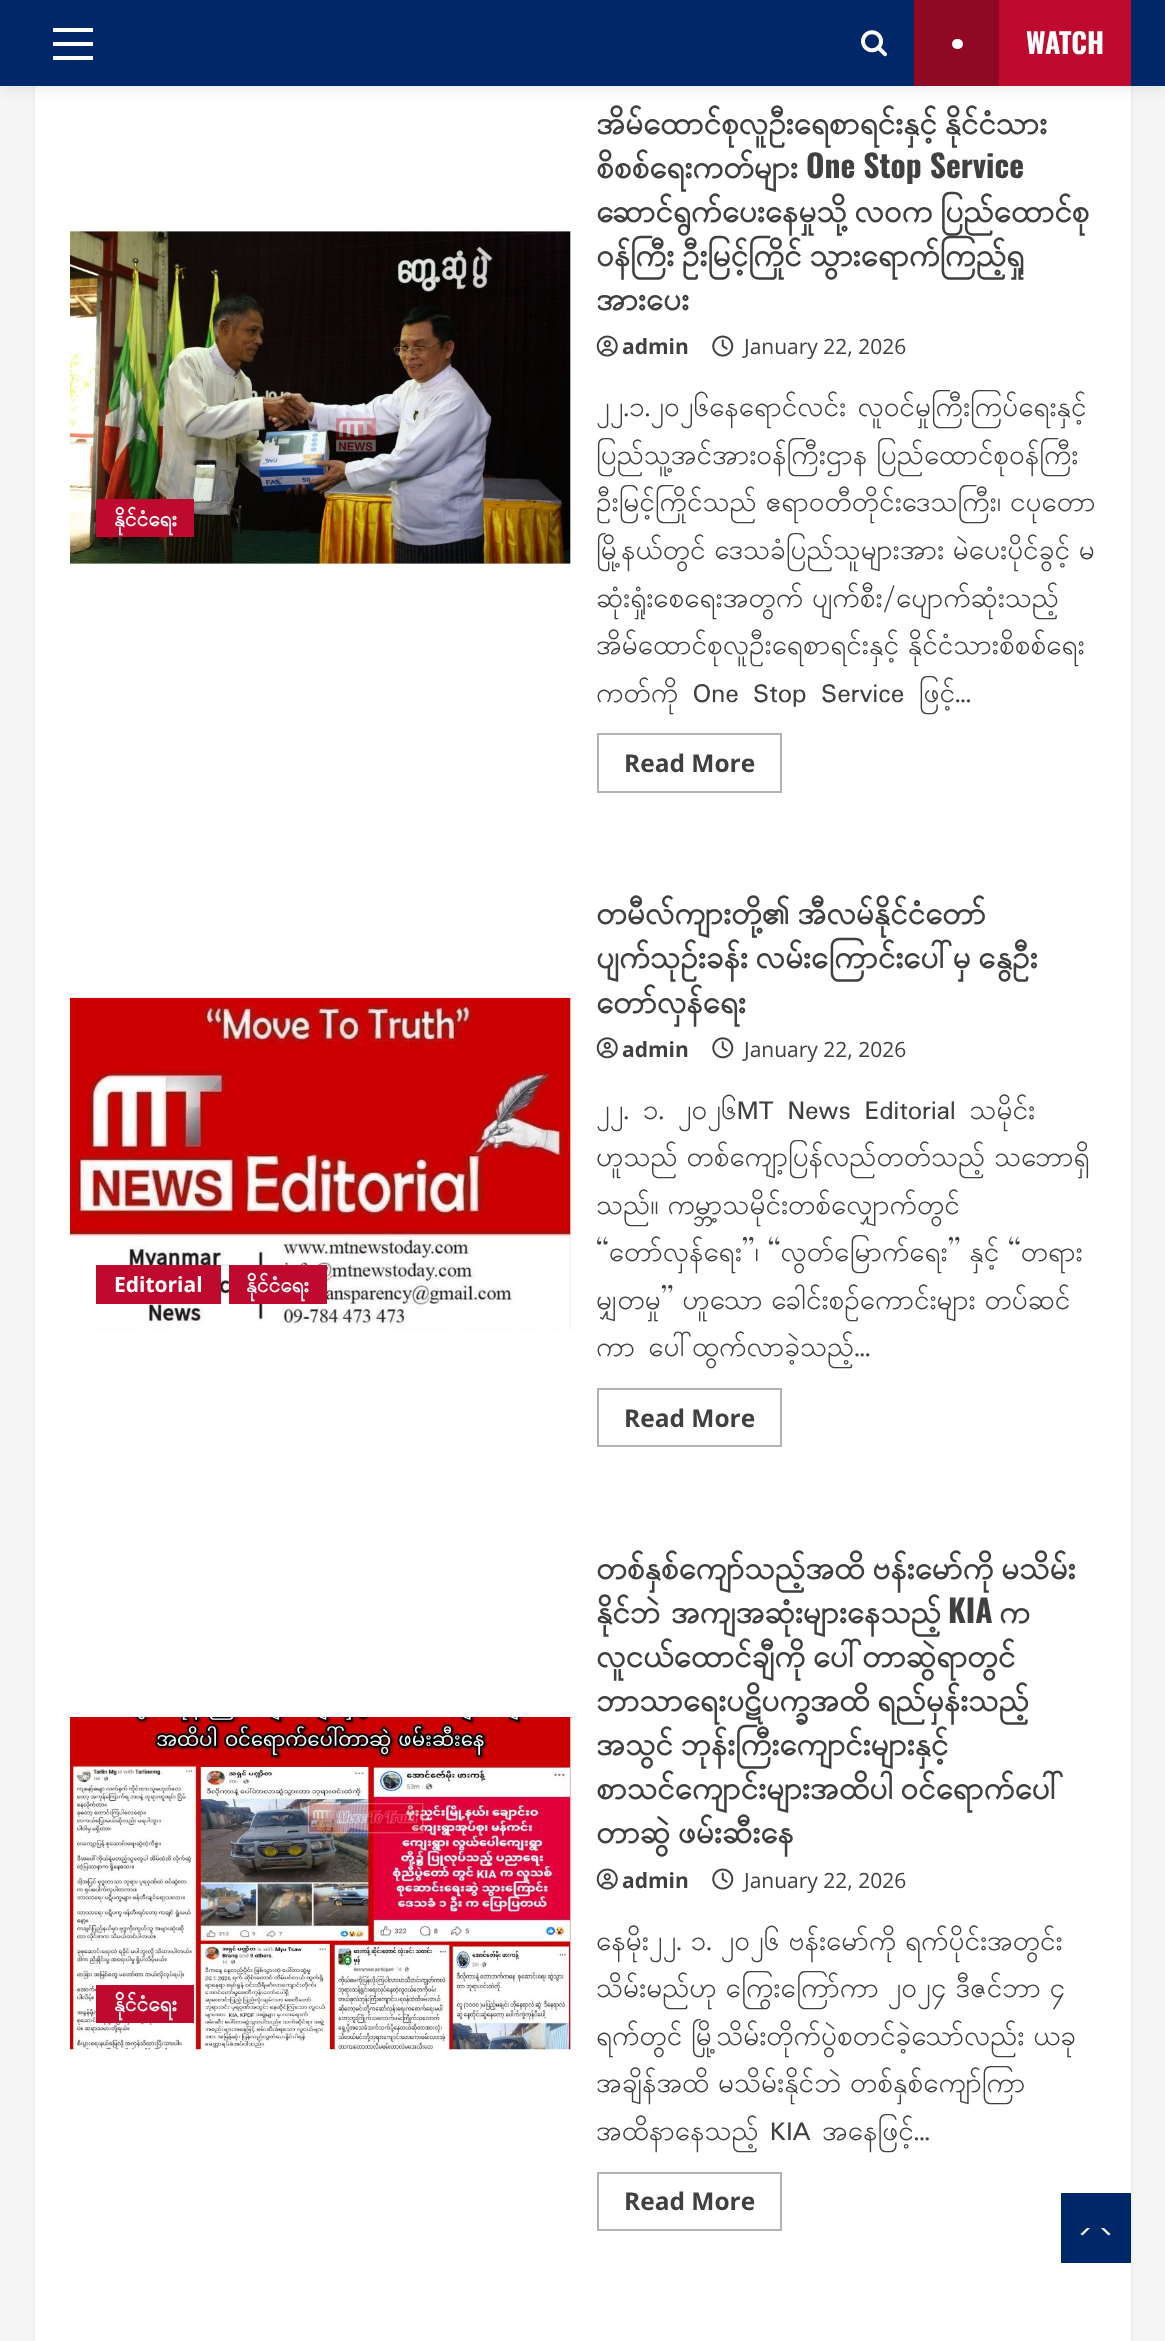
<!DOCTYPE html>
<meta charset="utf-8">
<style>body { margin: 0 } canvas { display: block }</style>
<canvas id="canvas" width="1165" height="2341"></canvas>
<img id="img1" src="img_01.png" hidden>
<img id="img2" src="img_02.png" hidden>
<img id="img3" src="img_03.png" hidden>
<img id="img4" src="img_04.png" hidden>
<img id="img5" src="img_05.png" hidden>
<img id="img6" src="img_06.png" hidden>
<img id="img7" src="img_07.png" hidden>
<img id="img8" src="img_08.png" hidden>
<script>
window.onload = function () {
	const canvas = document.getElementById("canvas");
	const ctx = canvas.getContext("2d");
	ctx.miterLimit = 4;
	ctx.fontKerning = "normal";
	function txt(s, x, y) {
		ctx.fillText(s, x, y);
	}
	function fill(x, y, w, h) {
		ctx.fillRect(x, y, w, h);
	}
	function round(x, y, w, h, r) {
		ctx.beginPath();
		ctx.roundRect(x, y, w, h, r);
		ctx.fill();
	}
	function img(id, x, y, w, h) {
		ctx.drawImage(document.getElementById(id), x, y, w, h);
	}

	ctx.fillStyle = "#F5F5F5";
	fill(0, 0, 1165, 2341);
	ctx.fillStyle = "rgba(0, 0, 0, 0.08)";
	ctx.filter = "blur(2px)";
	ctx.beginPath();
	ctx.rect(35, -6, 1096, 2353);
	ctx.fill();
	ctx.filter = "none";
	ctx.fillStyle = "#FFFFFF";
	fill(35, 86, 1096, 2255);
	ctx.fillStyle = "rgba(0, 0, 0, 0.08)";
	ctx.filter = "blur(7px)";
	ctx.beginPath();
	ctx.rect(0, 4, 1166, 85);
	ctx.fill();
	ctx.filter = "none";
	ctx.fillStyle = "#002868";
	fill(0, 0, 1165, 86);
	ctx.fillStyle = "#FFFFFF";
	fill(53, 42, 40, 4);
	fill(53, 28, 40, 4);
	fill(53, 56, 40, 4);
	img("img1", 861, 30, 26, 27);
	ctx.fillStyle = "#BF0A30";
	fill(999, 0, 132, 86);
	ctx.fillStyle = "#8F0824";
	fill(914, 0, 85, 86);
	ctx.fillStyle = "#FFFFFF";
	round(952, 39, 11, 10, 5);
	ctx.fillStyle = "#ECECEC";
	fill(70, 231, 501, 333);
	img("img2", 70, 231, 501, 333);
	ctx.fillStyle = "#BF0A30";
	fill(96, 499, 98, 38);
	img("img3", 596, 335, 22, 22);
	img("img4", 712, 335, 22, 22);
	ctx.strokeStyle = "#B3B3B3";
	ctx.lineWidth = 2;
	ctx.strokeRect(598, 734, 183, 58);
	ctx.fillStyle = "#ECECEC";
	fill(570, 998, 1, 332);
	img("img5", 70, 997, 501, 333);
	ctx.fillStyle = "#BF0A30";
	fill(96, 1265, 125, 39);
	fill(229, 1265, 98, 39);
	img("img6", 596, 1037, 22, 22);
	img("img7", 712, 1037, 22, 22);
	ctx.strokeRect(598, 1389, 183, 57);
	ctx.fillStyle = "#ECECEC";
	fill(570, 1717, 1, 332);
	img("img8", 70, 1717, 501, 333);
	ctx.fillStyle = "#BF0A30";
	fill(96, 1985, 98, 38);
	img("img3", 596, 1868, 22, 22);
	img("img4", 712, 1868, 22, 22);
	ctx.strokeRect(598, 2173, 183, 57);
	ctx.fillStyle = "#002868";
	fill(1061, 2193, 70, 70);
	ctx.fillStyle = "#FFFFFF";
	ctx.beginPath();
	ctx.moveTo(1087, 2236.5);
	ctx.lineTo(1104, 2236.5);
	ctx.bezierCurveTo(1106.5, 2236.5, 1109, 2235.5, 1110.5, 2234);
	ctx.lineTo(1104, 2228);
	ctx.lineTo(1087, 2228);
	ctx.lineTo(1080.5, 2234);
	ctx.bezierCurveTo(1082, 2235.5, 1084.5, 2236.5, 1087, 2236.5);
	ctx.closePath();
	ctx.fill();
	ctx.fillStyle = "#002868";
	ctx.beginPath();
	ctx.moveTo(1113, 2240);
	ctx.lineTo(1078, 2240);
	ctx.lineTo(1095.5, 2222.5);
	ctx.closePath();
	ctx.fill();
	ctx.font = "bold 28px Oswald";
	ctx.fillStyle = "#FFFFFF";
	txt("WATCH", 1026, 54);
	ctx.font = "bold 21px Padauk";
	txt("နိုင်ငံရေး", 114, 526);
	ctx.wordSpacing = "-4px";
	ctx.font = "bold 31.5px Padauk";
	ctx.fillStyle = "#404040";
	txt("အိမ်ထောင်စုလူဦးရေစာရင်းနှင့် နိုင်ငံသား", 596, 134);
	ctx.wordSpacing = "0px";
	txt("စိစစ်ရေးကတ်များ", 596, 178);
	ctx.font = "bold 31.5px Oswald";
	txt("One Stop Service", 806, 178);
	ctx.wordSpacing = "-4px";
	ctx.font = "bold 31.5px Padauk";
	txt("ဆောင်ရွက်ပေးနေမှုသို့ လ၀က ပြည်ထောင်စု", 596, 222);
	txt("ဝန်ကြီး ဦးမြင့်ကြိုင် သွားရောက်ကြည့်ရှု", 596, 266);
	ctx.wordSpacing = "0px";
	txt("အားပေး", 596, 310);
	ctx.font = "bold 21px Open Sans";
	txt("admin", 622, 354);
	ctx.font = "21px Open Sans";
	txt("January 22, 2026", 744, 354);
	ctx.wordSpacing = "1px";
	ctx.font = "28px Padauk";
	txt("၂၂.၁.၂၀၂၆နေရောင်လင်း လူဝင်မှုကြီးကြပ်ရေးနှင့်", 596, 416);
	ctx.wordSpacing = "-1.5px";
	txt("ပြည်သူ့အင်အားဝန်ကြီးဌာန ပြည်ထောင်စုဝန်ကြီး", 596, 464);
	txt("ဦးမြင့်ကြိုင်သည် ဧရာ၀တီတိုင်းဒေသကြီး၊ ငပုတော", 596, 511);
	txt("မြို့နယ်တွင် ဒေသခံပြည်သူများအား မဲပေးပိုင်ခွင့် မ", 596, 559);
	txt("ဆုံးရှုံးစေရေးအတွက် ပျက်စီး/ပျောက်ဆုံးသည့်", 596, 607);
	txt("အိမ်ထောင်စုလူဦးရေစာရင်းနှင့် နိုင်ငံသားစိစစ်ရေး", 596, 654);
	ctx.wordSpacing = "4px";
	txt("ကတ်ကို One Stop Service ဖြင့်...", 596, 702);
	ctx.wordSpacing = "0px";
	ctx.font = "bold 24.5px Open Sans";
	txt("Read More", 624, 772);
	ctx.font = "bold 21px Open Sans";
	ctx.fillStyle = "#FFFFFF";
	txt("Editorial", 114, 1292);
	ctx.font = "bold 21px Padauk";
	txt("နိုင်ငံရေး", 246, 1292);
	ctx.wordSpacing = "-4px";
	ctx.font = "bold 31.5px Padauk";
	ctx.fillStyle = "#404040";
	txt("တမီလ်ကျားတို့၏ အီလမ်နိုင်ငံတော်", 596, 924);
	txt("ပျက်သုဉ်းခန်း လမ်းကြောင်းပေါ်မှ နွေဦး", 596, 968);
	ctx.wordSpacing = "0px";
	txt("တော်လှန်ရေး", 596, 1013);
	ctx.font = "bold 21px Open Sans";
	txt("admin", 622, 1057);
	ctx.font = "21px Open Sans";
	txt("January 22, 2026", 744, 1057);
	ctx.wordSpacing = "3.5px";
	ctx.font = "28px Padauk";
	txt("၂၂. ၁. ၂၀၂၆MT News Editorial သမိုင်း", 596, 1119);
	ctx.wordSpacing = "-1.5px";
	txt("ဟူသည် တစ်ကျော့ပြန်လည်တတ်သည့် သဘောရှိ", 596, 1166);
	txt("သည်။ ကမ္ဘာ့သမိုင်းတစ်လျှောက်တွင်", 596, 1214);
	txt("“တော်လှန်ရေး”၊ “လွတ်မြောက်ရေး” နှင့် “တရား", 596, 1261);
	txt("မျှတမှု” ဟူသော ခေါင်းစဉ်ကောင်းများ တပ်ဆင်", 596, 1309);
	ctx.wordSpacing = "3px";
	txt("ကာ ပေါ်ထွက်လာခဲ့သည့်...", 596, 1356);
	ctx.wordSpacing = "0px";
	ctx.font = "bold 24.5px Open Sans";
	txt("Read More", 624, 1427);
	ctx.font = "bold 21px Padauk";
	ctx.fillStyle = "#FFFFFF";
	txt("နိုင်ငံရေး", 114, 2011);
	ctx.wordSpacing = "-4px";
	ctx.font = "bold 31.5px Padauk";
	ctx.fillStyle = "#404040";
	txt("တစ်နှစ်ကျော်သည့်အထိ ဗန်းမော်ကို မသိမ်း", 596, 1579);
	ctx.wordSpacing = "-1px";
	txt("နိုင်ဘဲ အကျအဆုံးများနေသည့်", 596, 1623);
	ctx.wordSpacing = "0px";
	ctx.font = "bold 31.5px Oswald";
	txt("KIA", 948, 1623);
	ctx.font = "bold 31.5px Padauk";
	txt("က", 999, 1623);
	ctx.wordSpacing = "-4px";
	txt("လူငယ်ထောင်ချီကို ပေါ်တာဆွဲရာတွင်", 596, 1667);
	txt("ဘာသာရေးပဋိပက္ခအထိ ရည်မှန်းသည့်", 596, 1711);
	txt("အသွင် ဘုန်းကြီးကျောင်းများနှင့်", 596, 1755);
	txt("စာသင်ကျောင်းများအထိပါ ဝင်ရောက်ပေါ်", 596, 1799);
	txt("တာဆွဲ ဖမ်းဆီးနေ", 596, 1843);
	ctx.wordSpacing = "0px";
	ctx.font = "bold 21px Open Sans";
	txt("admin", 622, 1888);
	ctx.font = "21px Open Sans";
	txt("January 22, 2026", 744, 1888);
	ctx.wordSpacing = "-1.5px";
	ctx.font = "28px Padauk";
	txt("နေမိုး၂၂. ၁. ၂၀၂၆ ဗန်းမော်ကို ရက်ပိုင်းအတွင်း", 596, 1950);
	txt("သိမ်းမည်ဟု ကြွေးကြော်ကာ ၂၀၂၄ ဒီဇင်ဘာ ၄", 596, 1997);
	txt("ရက်တွင် မြို့သိမ်းတိုက်ပွဲစတင်ခဲ့သော်လည်း ယခု", 596, 2045);
	txt("အချိန်အထိ မသိမ်းနိုင်ဘဲ တစ်နှစ်ကျော်ကြာ", 596, 2092);
	ctx.wordSpacing = "1px";
	txt("အထိနာနေသည့် KIA အနေဖြင့်...", 596, 2140);
	ctx.wordSpacing = "0px";
	ctx.font = "bold 24.5px Open Sans";
	txt("Read More", 624, 2210);
};
</script>
